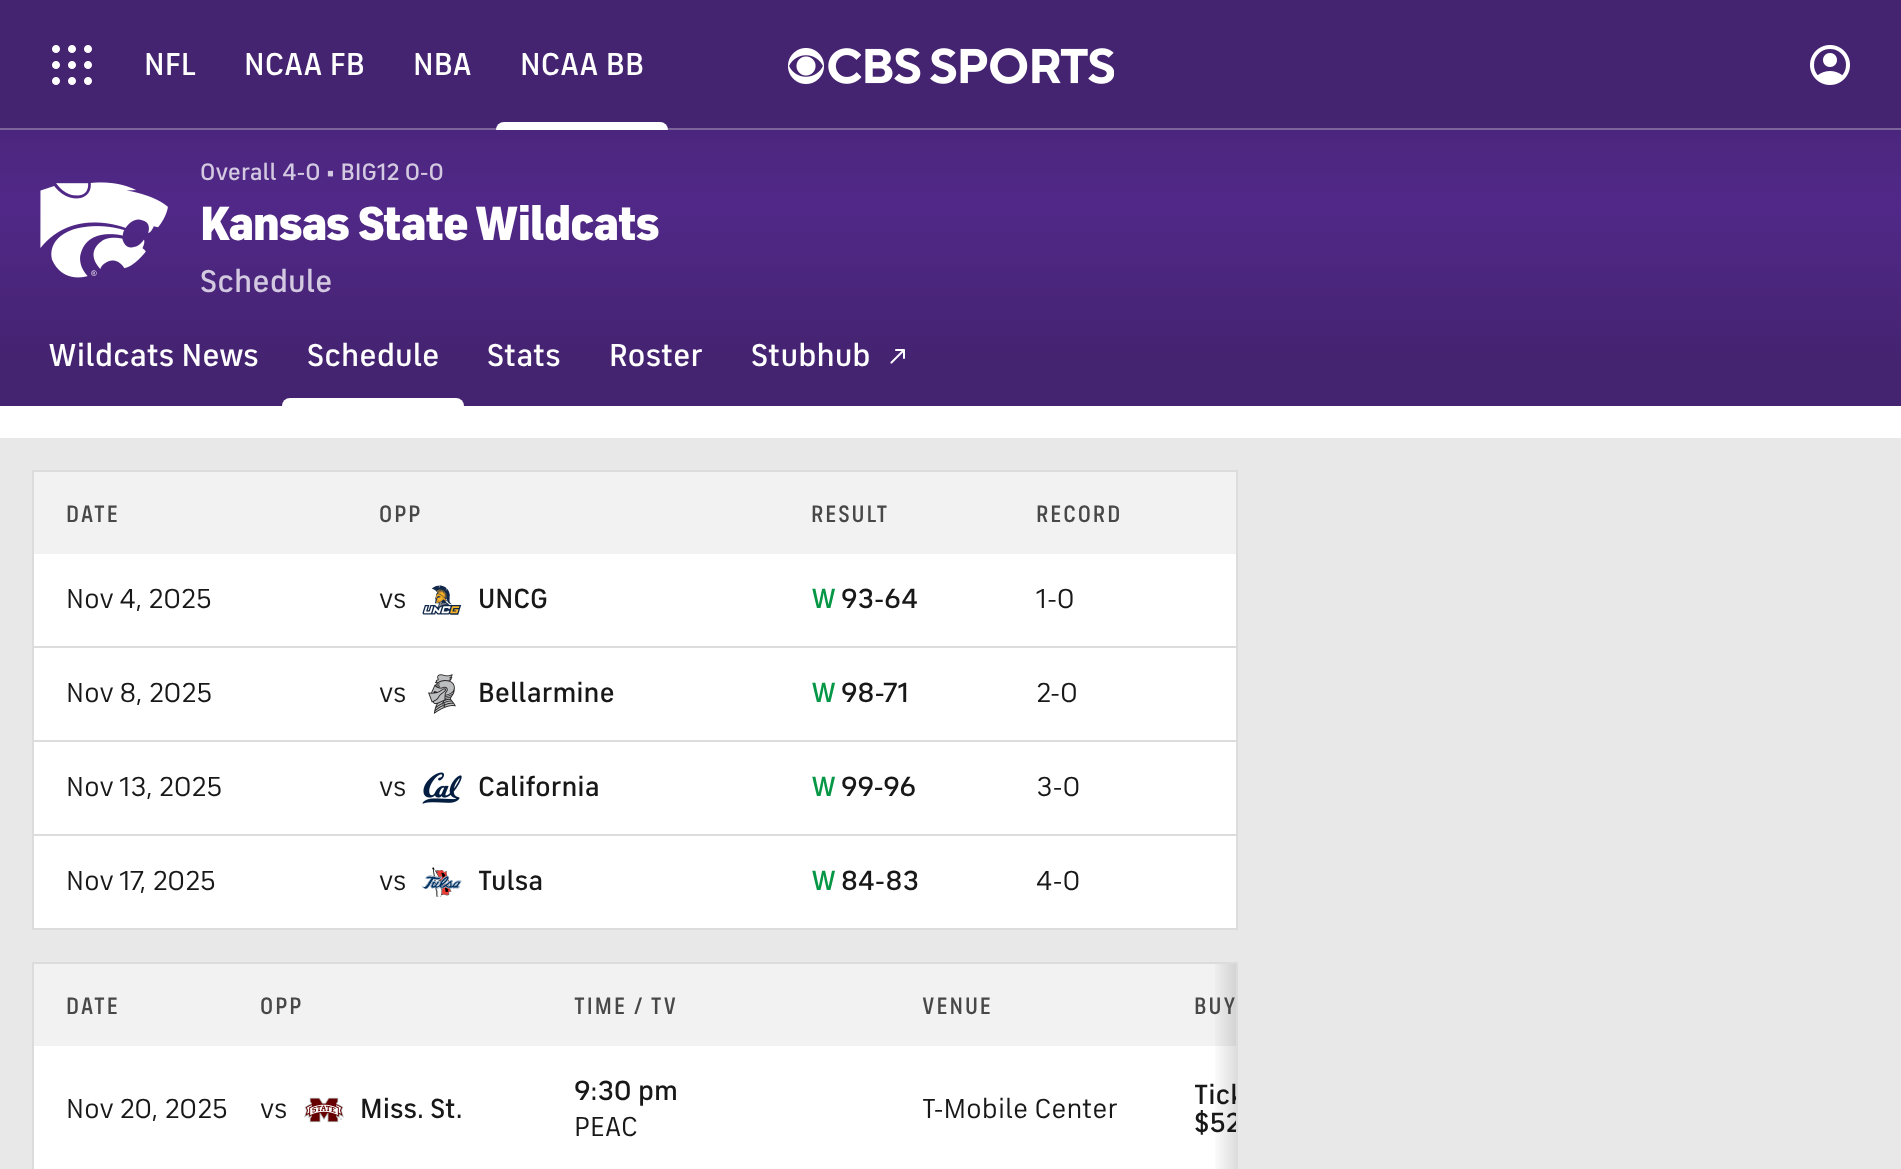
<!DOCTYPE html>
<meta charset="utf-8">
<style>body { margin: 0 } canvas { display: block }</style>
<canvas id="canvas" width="1901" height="1169"></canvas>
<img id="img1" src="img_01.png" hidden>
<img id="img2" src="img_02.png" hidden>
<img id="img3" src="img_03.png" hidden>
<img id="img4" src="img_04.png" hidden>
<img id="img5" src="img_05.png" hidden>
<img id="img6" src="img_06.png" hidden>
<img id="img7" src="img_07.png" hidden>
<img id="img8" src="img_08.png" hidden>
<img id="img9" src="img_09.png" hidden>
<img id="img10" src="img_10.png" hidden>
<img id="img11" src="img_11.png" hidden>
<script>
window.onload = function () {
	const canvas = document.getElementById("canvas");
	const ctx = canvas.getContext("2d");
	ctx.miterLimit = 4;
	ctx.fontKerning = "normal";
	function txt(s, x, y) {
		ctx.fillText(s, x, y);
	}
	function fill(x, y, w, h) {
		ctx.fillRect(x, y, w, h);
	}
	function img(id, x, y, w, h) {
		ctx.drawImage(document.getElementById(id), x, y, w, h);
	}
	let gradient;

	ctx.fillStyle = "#FFFFFF";
	fill(0, 0, 1901, 1169);
	gradient = ctx.createLinearGradient(951, 0, 951, 406);
	gradient.addColorStop(0, "#442370");
	gradient.addColorStop(0.1, "#442370");
	gradient.addColorStop(0.5, "#512888");
	gradient.addColorStop(0.9, "#442370");
	gradient.addColorStop(1, "#442370");
	ctx.fillStyle = gradient;
	fill(0, 130, 1901, 276);
	ctx.fillStyle = "#442370";
	fill(0, 0, 1901, 128);
	ctx.fillStyle = "#7C659B";
	fill(0, 128, 1901, 2);
	img("img1", 52, 45, 40, 40);
	ctx.fillStyle = "#FFFFFF";
	ctx.beginPath();
	ctx.roundRect(496, 122, 172, 8, [8, 8, 0, 0]);
	ctx.fill();
	img("img2", 788, 48, 36, 36);
	img("img3", 828, 48, 286, 36);
	img("img4", 1810, 45, 40, 40);
	img("img5", 40, 182, 128, 96);
	ctx.beginPath();
	ctx.roundRect(282, 398, 182, 8, [8, 8, 0, 0]);
	ctx.fill();
	img("img6", 890, 349, 15, 15);
	ctx.fillStyle = "#E8E8E8";
	fill(0, 438, 1901, 731);
	ctx.fillStyle = "#FFFFFF";
	fill(34, 554, 1202, 374);
	ctx.strokeStyle = "#DCDCDC";
	ctx.lineWidth = 2;
	ctx.strokeRect(33, 471, 1204, 458);
	ctx.fillStyle = "#F2F2F2";
	fill(34, 472, 1202, 82);
	ctx.fillStyle = "#DCDCDC";
	fill(34, 646, 1202, 2);
	img("img7", 422, 585, 40, 30);
	fill(34, 740, 1202, 2);
	img("img8", 428, 674, 28, 40);
	fill(34, 834, 1202, 2);
	img("img9", 422, 772, 40, 32);
	img("img10", 422, 867, 40, 30);
	ctx.fillStyle = "#FFFFFF";
	fill(34, 1046, 1202, 123);
	ctx.strokeRect(33, 963, 1204, 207);
	ctx.fillStyle = "#F2F2F2";
	fill(34, 964, 1202, 82);
	gradient = ctx.createLinearGradient(1212, 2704, 1236, 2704);
	gradient.addColorStop(0, "rgba(33, 33, 33, 0)");
	gradient.addColorStop(1, "rgba(33, 33, 33, 0.15)");
	ctx.fillStyle = gradient;
	fill(1215, 964, 21, 205);
	img("img11", 304, 1097, 40, 26);
	ctx.font = "500 32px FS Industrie";
	ctx.fillStyle = "#FFFFFF";
	txt("NFL", 144, 75);
	txt("NCAA FB", 244, 75);
	txt("NBA", 413, 75);
	txt("NCAA BB", 520, 75);
	ctx.font = "500 24px FS Industrie";
	ctx.fillStyle = "#D3C9E0";
	txt("Overall 4-0 • BIG12 0-0", 200, 180);
	ctx.letterSpacing = "-1.4px";
	ctx.font = "900 48px FS Industrie";
	ctx.fillStyle = "#FFFFFF";
	txt("Kansas State Wildcats", 200, 240);
	ctx.letterSpacing = "0px";
	ctx.font = "500 32px FS Industrie";
	ctx.fillStyle = "#D3C9E0";
	txt("Schedule", 200, 292);
	ctx.fillStyle = "#FFFFFF";
	txt("Wildcats News", 48, 366);
	txt("Schedule", 307, 366);
	txt("Stats", 487, 366);
	txt("Roster", 609, 366);
	txt("Stubhub", 751, 366);
	ctx.letterSpacing = "2px";
	ctx.font = "500 24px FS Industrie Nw";
	ctx.fillStyle = "#484848";
	txt("DATE", 66, 522);
	txt("OPP", 379, 522);
	txt("RESULT", 811, 522);
	txt("RECORD", 1036, 522);
	ctx.letterSpacing = "0px";
	ctx.font = "28px FS Industrie";
	ctx.fillStyle = "#181818";
	txt("Nov 4, 2025", 66, 608);
	txt("vs", 379, 608);
	ctx.font = "500 28px FS Industrie";
	txt("UNCG", 478, 608);
	ctx.fillStyle = "#059646";
	txt("W", 811, 608);
	ctx.fillStyle = "#181818";
	txt("93-64", 841, 608);
	ctx.font = "28px FS Industrie";
	txt("1-0", 1036, 608);
	txt("Nov 8, 2025", 66, 702);
	txt("vs", 379, 702);
	ctx.font = "500 28px FS Industrie";
	txt("Bellarmine", 478, 702);
	ctx.fillStyle = "#059646";
	txt("W", 811, 702);
	ctx.fillStyle = "#181818";
	txt("98-71", 841, 702);
	ctx.font = "28px FS Industrie";
	txt("2-0", 1036, 702);
	txt("Nov 13, 2025", 66, 796);
	txt("vs", 379, 796);
	ctx.font = "500 28px FS Industrie";
	txt("California", 478, 796);
	ctx.fillStyle = "#059646";
	txt("W", 811, 796);
	ctx.fillStyle = "#181818";
	txt("99-96", 841, 796);
	ctx.font = "28px FS Industrie";
	txt("3-0", 1036, 796);
	txt("Nov 17, 2025", 66, 890);
	txt("vs", 379, 890);
	ctx.font = "500 28px FS Industrie";
	txt("Tulsa", 478, 890);
	ctx.fillStyle = "#059646";
	txt("W", 811, 890);
	ctx.fillStyle = "#181818";
	txt("84-83", 841, 890);
	ctx.font = "28px FS Industrie";
	txt("4-0", 1036, 890);
	ctx.letterSpacing = "2px";
	ctx.font = "500 24px FS Industrie Nw";
	ctx.fillStyle = "#484848";
	txt("DATE", 66, 1014);
	txt("OPP", 260, 1014);
	txt("TIME / TV", 574, 1014);
	txt("VENUE", 922, 1014);
	txt("BUY", 1194, 1014);
	ctx.letterSpacing = "0px";
	ctx.font = "28px FS Industrie";
	ctx.fillStyle = "#181818";
	txt("Nov 20, 2025", 66, 1118);
	txt("vs", 260, 1118);
	ctx.font = "500 28px FS Industrie";
	txt("Miss. St.", 360, 1118);
	txt("9:30 pm", 574, 1100);
	ctx.font = "28px FS Industrie";
	txt("PEAC", 574, 1136);
	txt("T-Mobile Center", 922, 1118);
	ctx.save();
	ctx.beginPath();
	ctx.rect(34, 964, 1202, 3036);
	ctx.clip();
	ctx.font = "500 28px FS Industrie";
	txt("Tick", 1194, 1104);
	txt("$52", 1194, 1132);
	ctx.restore();
};
</script>
